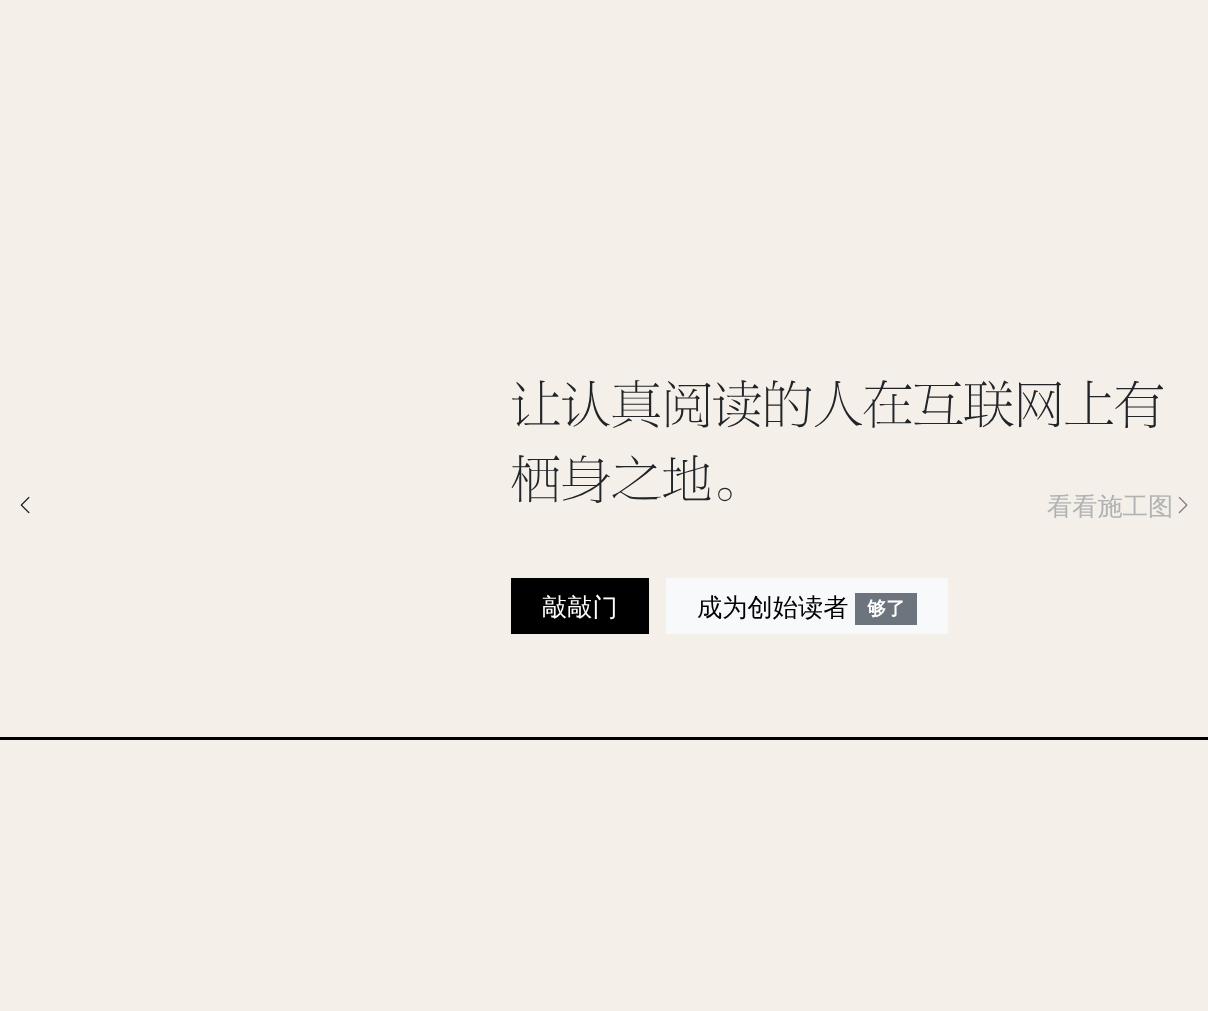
<!DOCTYPE html>
<meta charset="utf-8">
<style>body { margin: 0 } canvas { display: block }</style>
<canvas id="canvas" width="1208" height="1011"></canvas>
<img id="img1" src="img_01.png" hidden>
<img id="img2" src="img_02.png" hidden>
<script>
window.onload = function () {
	const canvas = document.getElementById("canvas");
	const ctx = canvas.getContext("2d");
	ctx.miterLimit = 4;
	ctx.fontKerning = "normal";
	function txt(s, x, y) {
		ctx.fillText(s, x, y);
	}
	function fill(x, y, w, h) {
		ctx.fillRect(x, y, w, h);
	}
	function img(id, x, y, w, h) {
		ctx.drawImage(document.getElementById(id), x, y, w, h);
	}

	ctx.fillStyle = "#F4EFE9";
	fill(0, 0, 1208, 1011);
	ctx.fillStyle = "#000000";
	fill(511, 578, 138, 56);
	ctx.fillStyle = "#F8F9FA";
	fill(666, 578, 282, 56);
	ctx.fillStyle = "#6C757D";
	fill(855, 593, 62, 32);
	ctx.fillStyle = "#000000";
	fill(0, 737, 1208, 3);
	img("img1", 20, 496, 10, 18);
	img("img2", 1178, 497, 10, 17);
	ctx.font = "300 50.3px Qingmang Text";
	ctx.fillStyle = "#212529";
	txt("让认真阅读的人在互联网上有", 511, 422);
	txt("栖身之地。", 511, 497);
	ctx.font = "500 25.25px WenQuanYi Zen Hei";
	ctx.fillStyle = "#FFFFFF";
	txt("敲敲门", 542, 616);
	ctx.fillStyle = "#000000";
	txt("成为创始读者", 697, 616);
	ctx.font = "bold 19px WenQuanYi Zen Hei";
	ctx.fillStyle = "#FFFFFF";
	txt("够了", 867, 615);
	ctx.font = "500 25.25px WenQuanYi Zen Hei";
	ctx.fillStyle = "#B0B2B3";
	txt("看看施工图", 1047, 515);
};
</script>
